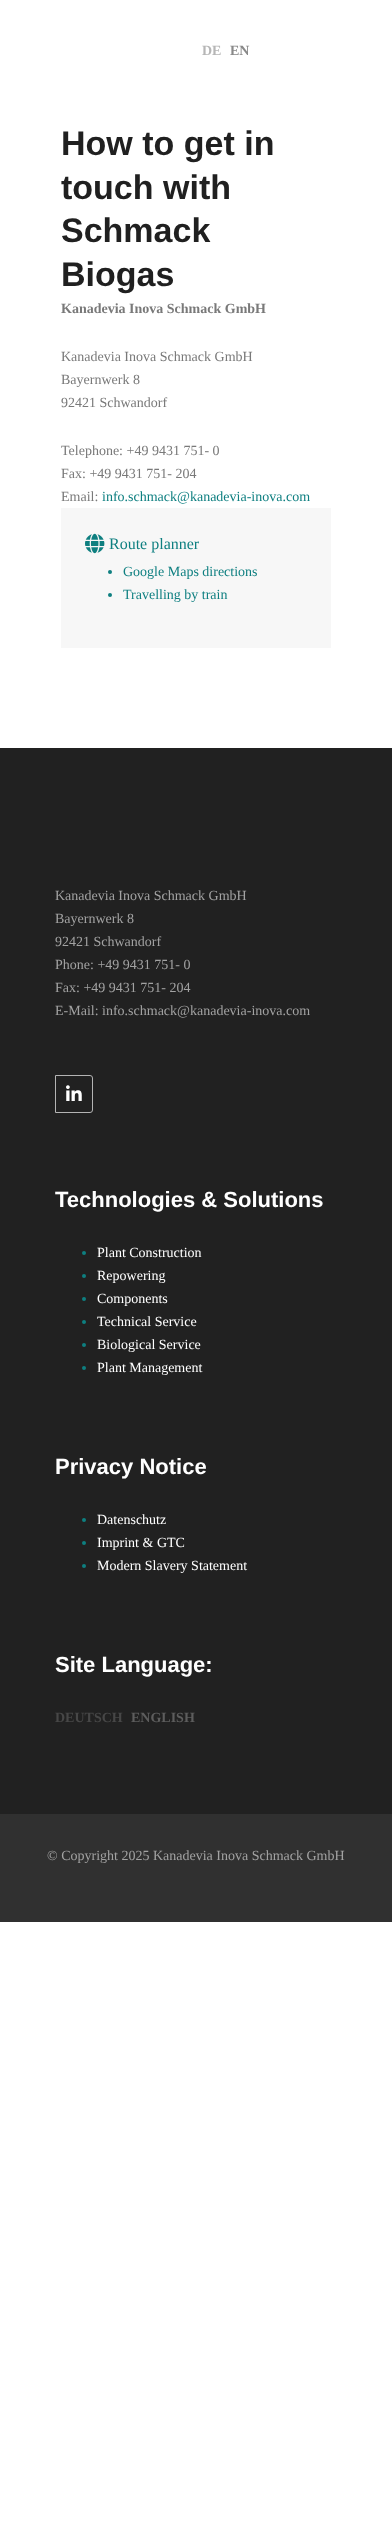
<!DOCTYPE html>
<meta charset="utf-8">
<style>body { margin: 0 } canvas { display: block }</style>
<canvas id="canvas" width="392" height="2547"></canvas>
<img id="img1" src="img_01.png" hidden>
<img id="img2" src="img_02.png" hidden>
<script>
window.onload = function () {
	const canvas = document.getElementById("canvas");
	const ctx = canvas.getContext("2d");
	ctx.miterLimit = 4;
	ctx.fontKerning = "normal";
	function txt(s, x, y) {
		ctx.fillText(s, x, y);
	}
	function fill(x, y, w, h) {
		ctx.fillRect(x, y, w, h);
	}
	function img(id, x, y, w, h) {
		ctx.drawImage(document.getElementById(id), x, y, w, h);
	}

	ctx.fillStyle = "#FFFFFF";
	fill(0, 0, 392, 2547);
	ctx.fillStyle = "#F7F7F7";
	fill(61, 508, 270, 140);
	img("img1", 85, 533, 20, 21);
	ctx.fillStyle = "#0E7F80";
	ctx.beginPath();
	ctx.arc(110, 572, 2, 0, Math.PI * 2);
	ctx.fill();
	ctx.beginPath();
	ctx.arc(110, 595, 2, 0, Math.PI * 2);
	ctx.fill();
	ctx.fillStyle = "#212121";
	fill(0, 748, 392, 1066);
	ctx.beginPath();
	ctx.roundRect(55.5, 1075.5, 37, 37, [0, 2.5, 2.5, 0]);
	ctx.strokeStyle = "#B4B4B4";
	ctx.stroke();
	img("img2", 66, 1085, 16, 16);
	ctx.fillStyle = "#0E7F80";
	ctx.beginPath();
	ctx.arc(84, 1253, 2, 0, Math.PI * 2);
	ctx.fill();
	ctx.beginPath();
	ctx.arc(84, 1276, 2, 0, Math.PI * 2);
	ctx.fill();
	ctx.beginPath();
	ctx.arc(84, 1299, 2, 0, Math.PI * 2);
	ctx.fill();
	ctx.beginPath();
	ctx.arc(84, 1322, 2, 0, Math.PI * 2);
	ctx.fill();
	ctx.beginPath();
	ctx.arc(84, 1345, 2, 0, Math.PI * 2);
	ctx.fill();
	ctx.beginPath();
	ctx.arc(84, 1368, 2, 0, Math.PI * 2);
	ctx.fill();
	ctx.beginPath();
	ctx.arc(84, 1520, 2, 0, Math.PI * 2);
	ctx.fill();
	ctx.beginPath();
	ctx.arc(84, 1543, 2, 0, Math.PI * 2);
	ctx.fill();
	ctx.beginPath();
	ctx.arc(84, 1566, 2, 0, Math.PI * 2);
	ctx.fill();
	ctx.fillStyle = "#303030";
	fill(0, 1814, 392, 108);
	ctx.font = "bold 14px Liberation Serif";
	ctx.fillStyle = "#B6B6B6";
	txt("DE", 202, 55);
	ctx.fillStyle = "#898989";
	txt("EN", 230, 55);
	ctx.font = "bold 34px Liberation Sans";
	ctx.fillStyle = "#202020";
	txt("How to get in", 61, 155);
	txt("touch with", 61, 199);
	txt("Schmack", 61, 242);
	txt("Biogas", 61, 286);
	ctx.font = "bold 14px Liberation Serif";
	ctx.fillStyle = "#797979";
	txt("Kanadevia Inova Schmack GmbH", 61, 313);
	ctx.font = "14px Liberation Serif";
	txt("Kanadevia Inova Schmack GmbH", 61, 361);
	txt("Bayernwerk 8", 61, 384);
	txt("92421 Schwandorf", 61, 407);
	txt("Telephone: +49 9431 751- 0", 61, 455);
	txt("Fax: +49 9431 751- 204", 61, 478);
	txt("Email:", 61, 501);
	ctx.fillStyle = "#0E7F80";
	txt("info.schmack@kanadevia-inova.com", 102, 501);
	ctx.font = "16px Liberation Serif";
	txt("Route planner", 109, 549);
	ctx.font = "14px Liberation Serif";
	txt("Google Maps directions", 123, 576);
	txt("Travelling by train", 123, 599);
	ctx.fillStyle = "#A2A2A2";
	txt("Kanadevia Inova Schmack GmbH", 55, 900);
	txt("Bayernwerk 8", 55, 923);
	txt("92421 Schwandorf", 55, 946);
	txt("Phone: +49 9431 751- 0", 55, 969);
	txt("Fax: +49 9431 751- 204", 55, 992);
	txt("E-Mail: info.schmack@kanadevia-inova.com", 55, 1015);
	ctx.font = "bold 22px Liberation Sans";
	ctx.fillStyle = "#FFFFFF";
	txt("Technologies & Solutions", 55, 1207);
	ctx.font = "14px Liberation Serif";
	txt("Plant Construction", 97, 1257);
	txt("Repowering", 97, 1280);
	txt("Components", 97, 1303);
	txt("Technical Service", 97, 1326);
	txt("Biological Service", 97, 1349);
	txt("Plant Management", 97, 1372);
	ctx.font = "bold 22px Liberation Sans";
	txt("Privacy Notice", 55, 1474);
	ctx.font = "14px Liberation Serif";
	txt("Datenschutz", 97, 1524);
	txt("Imprint & GTC", 97, 1547);
	txt("Modern Slavery Statement", 97, 1570);
	ctx.font = "bold 22px Liberation Sans";
	txt("Site Language:", 55, 1672);
	ctx.font = "bold 14px Liberation Serif";
	ctx.fillStyle = "#474747";
	txt("DEUTSCH", 55, 1722);
	ctx.fillStyle = "#5D5D5D";
	txt("ENGLISH", 131, 1722);
	ctx.font = "14px Liberation Serif";
	ctx.fillStyle = "#A2A2A2";
	txt("© Copyright 2025 Kanadevia Inova Schmack GmbH", 47, 1860);
};
</script>
